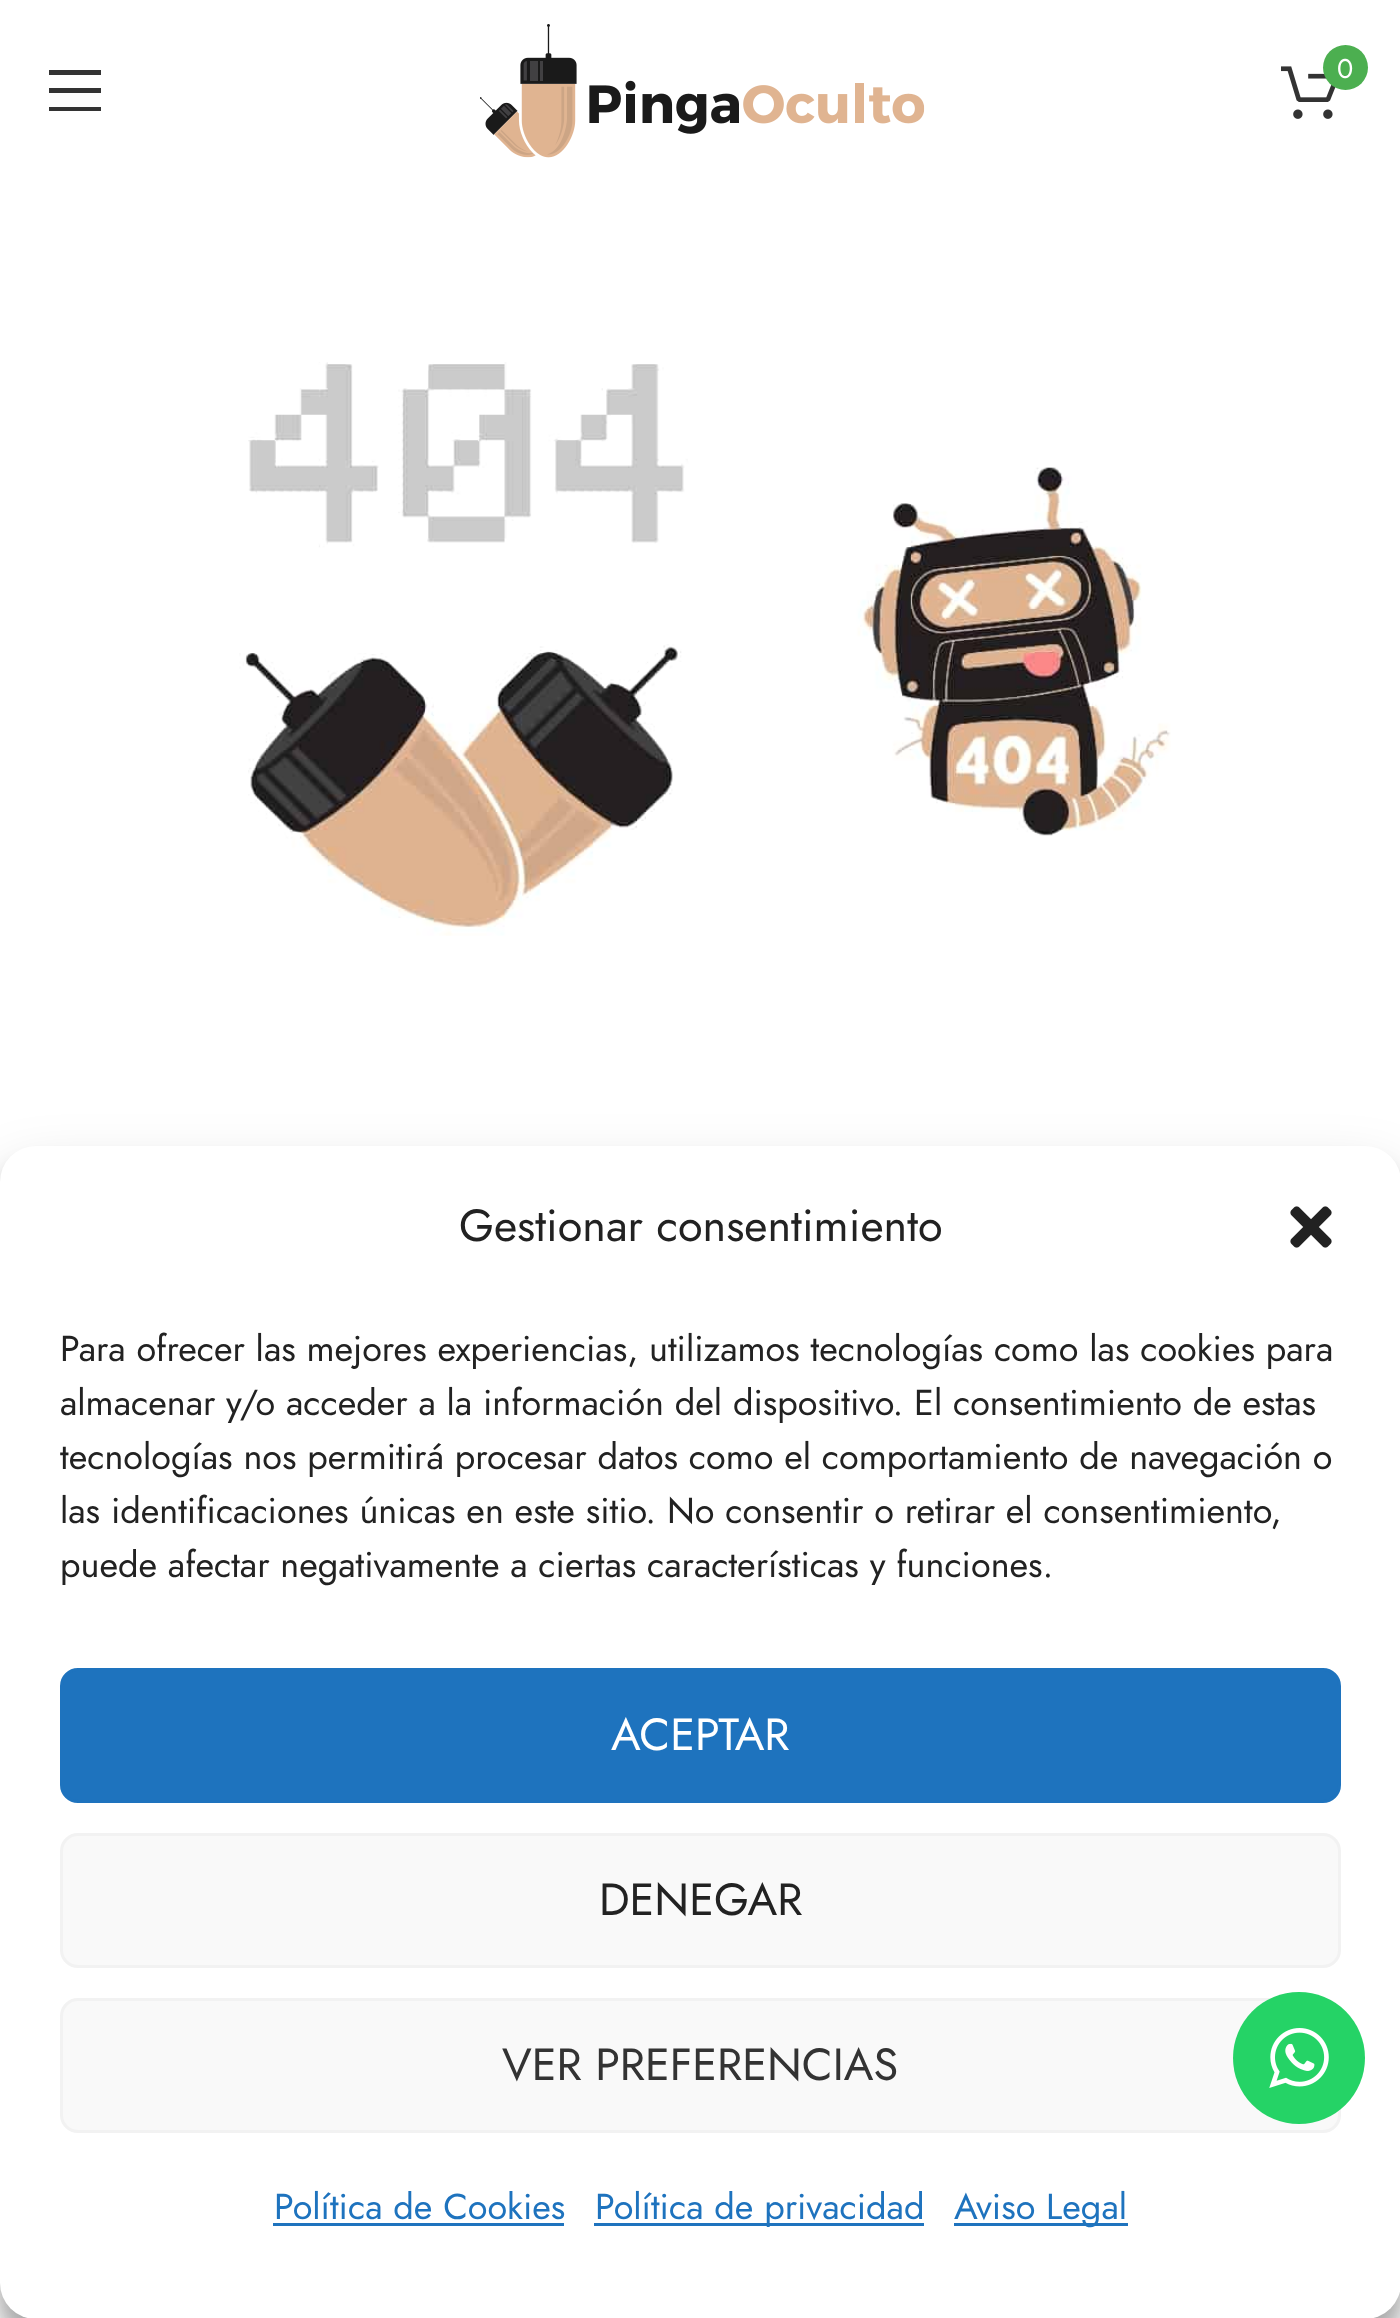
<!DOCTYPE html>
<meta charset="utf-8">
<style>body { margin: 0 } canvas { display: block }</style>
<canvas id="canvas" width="1400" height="2318"></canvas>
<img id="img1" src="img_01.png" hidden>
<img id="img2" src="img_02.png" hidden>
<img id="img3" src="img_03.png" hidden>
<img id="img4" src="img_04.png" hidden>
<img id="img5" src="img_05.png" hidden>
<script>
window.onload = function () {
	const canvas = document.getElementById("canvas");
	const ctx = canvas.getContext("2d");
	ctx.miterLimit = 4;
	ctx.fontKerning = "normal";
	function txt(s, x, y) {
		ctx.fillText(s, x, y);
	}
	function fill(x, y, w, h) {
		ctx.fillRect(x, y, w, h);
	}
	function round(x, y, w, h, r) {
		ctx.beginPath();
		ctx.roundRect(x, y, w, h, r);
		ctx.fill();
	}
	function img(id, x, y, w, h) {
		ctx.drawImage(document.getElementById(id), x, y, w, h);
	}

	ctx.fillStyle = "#FFFFFF";
	fill(0, 0, 1400, 2318);
	ctx.fillStyle = "#333333";
	ctx.beginPath();
	ctx.moveTo(49, 75);
	ctx.lineTo(101, 75);
	ctx.lineTo(101, 70);
	ctx.lineTo(49, 70);
	ctx.closePath();
	ctx.moveTo(49, 93);
	ctx.lineTo(101, 93);
	ctx.lineTo(101, 88);
	ctx.lineTo(49, 88);
	ctx.closePath();
	ctx.moveTo(49, 111);
	ctx.lineTo(101, 111);
	ctx.lineTo(101, 107);
	ctx.lineTo(49, 107);
	ctx.closePath();
	ctx.fill();
	img("img1", 480, 24, 445, 134);
	img("img2", 1281, 66, 55, 53);
	ctx.fillStyle = "#4CAF50";
	ctx.beginPath();
	ctx.arc(1345.5, 67.5, 22.5, 0, Math.PI * 2);
	ctx.fill();
	img("img3", 239, 362, 932, 574);
	ctx.fillStyle = "rgba(0, 0, 0, 0.23)";
	ctx.filter = "blur(9px)";
	ctx.beginPath();
	ctx.roundRect(0, 1164, 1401, 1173, 36);
	ctx.fill();
	ctx.filter = "none";
	ctx.fillStyle = "rgba(0, 0, 0, 0.19)";
	ctx.filter = "blur(30px)";
	ctx.beginPath();
	ctx.roundRect(0, 1176, 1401, 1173, 36);
	ctx.fill();
	ctx.filter = "none";
	ctx.fillStyle = "#FFFFFF";
	round(0, 1146, 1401, 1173, 36);
	img("img4", 1290, 1206, 42, 42);
	ctx.fillStyle = "#1E73BE";
	ctx.beginPath();
	ctx.roundRect(61.5, 1669.5, 1278, 132, 16.5);
	ctx.fill();
	ctx.strokeStyle = "#1E73BE";
	ctx.lineWidth = 3;
	ctx.stroke();
	ctx.fillStyle = "#F9F9F9";
	ctx.beginPath();
	ctx.roundRect(61.5, 1834.5, 1278, 132, 16.5);
	ctx.fill();
	ctx.strokeStyle = "#F2F2F2";
	ctx.stroke();
	ctx.beginPath();
	ctx.roundRect(61.5, 1999.5, 1278, 132, 16.5);
	ctx.fill();
	ctx.stroke();
	ctx.fillStyle = "#1E73BE";
	fill(273, 2223, 291, 3);
	fill(594, 2223, 330, 3);
	fill(954, 2223, 174, 3);
	ctx.fillStyle = "#25D366";
	ctx.beginPath();
	ctx.arc(1299, 2058, 66, 0, Math.PI * 2);
	ctx.fill();
	img("img5", 1269, 2028, 60, 60);
	ctx.font = "27px Jost";
	ctx.fillStyle = "#FFFFFF";
	txt("0", 1337, 78);
	ctx.font = "45px Jost";
	ctx.fillStyle = "#222222";
	txt("Gestionar consentimiento", 459, 1241);
	ctx.font = "36px Jost";
	txt("Para ofrecer las mejores experiencias, utilizamos tecnologías como las cookies para", 60, 1361);
	txt("almacenar y/o acceder a la información del dispositivo. El consentimiento de estas", 60, 1415);
	txt("tecnologías nos permitirá procesar datos como el comportamiento de navegación o", 60, 1469);
	txt("las identificaciones únicas en este sitio. No consentir o retirar el consentimiento,", 60, 1523);
	txt("puede afectar negativamente a ciertas características y funciones.", 60, 1577);
	ctx.font = "45px Jost";
	ctx.fillStyle = "#FFFFFF";
	txt("ACEPTAR", 611, 1750);
	ctx.fillStyle = "#222222";
	txt("DENEGAR", 599, 1915);
	ctx.fillStyle = "#333333";
	txt("VER PREFERENCIAS", 502, 2080);
	ctx.font = "36px Jost";
	ctx.fillStyle = "#1E73BE";
	txt("Política de Cookies", 274, 2219);
	txt("Política de privacidad", 595, 2219);
	txt("Aviso Legal", 954, 2219);
};
</script>
